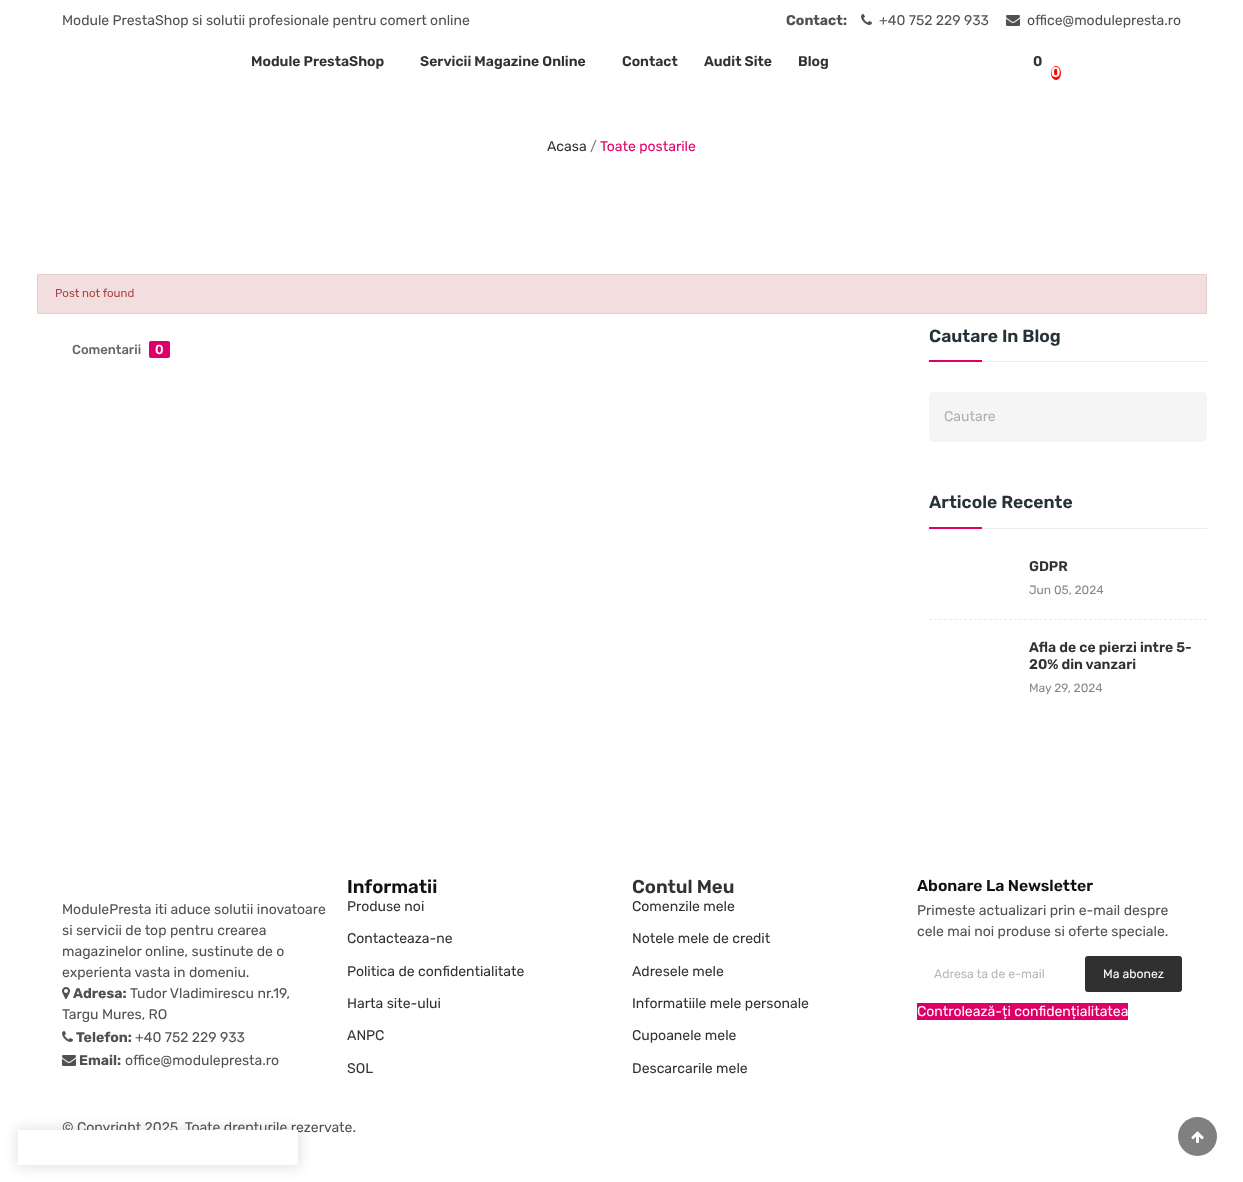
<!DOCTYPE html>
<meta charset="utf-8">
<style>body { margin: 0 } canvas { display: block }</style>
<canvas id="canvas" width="1243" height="1182"></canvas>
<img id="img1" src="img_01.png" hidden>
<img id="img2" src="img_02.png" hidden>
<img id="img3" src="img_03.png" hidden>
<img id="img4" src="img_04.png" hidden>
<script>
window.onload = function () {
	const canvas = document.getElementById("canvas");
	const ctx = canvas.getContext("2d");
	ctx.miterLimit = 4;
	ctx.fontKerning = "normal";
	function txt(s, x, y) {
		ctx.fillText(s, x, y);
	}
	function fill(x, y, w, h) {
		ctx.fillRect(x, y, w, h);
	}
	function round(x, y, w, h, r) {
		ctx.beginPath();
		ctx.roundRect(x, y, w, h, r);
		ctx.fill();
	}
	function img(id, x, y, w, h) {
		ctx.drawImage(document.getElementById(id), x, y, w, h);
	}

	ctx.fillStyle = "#FFFFFF";
	fill(0, 0, 1243, 1182);
	img("img1", 861, 14, 11, 11);
	img("img2", 1006, 15, 14, 11);
	ctx.fillStyle = "#FF0000";
	ctx.beginPath();
	ctx.ellipse(1056, 73, 5, 7, 0, 0, Math.PI * 2);
	ctx.fill();
	ctx.fillStyle = "#F2DEDE";
	ctx.beginPath();
	ctx.rect(37.5, 274.5, 1169, 39);
	ctx.fill();
	ctx.strokeStyle = "#EBCCCC";
	ctx.stroke();
	ctx.fillStyle = "#DF0067";
	round(149, 341, 21, 17, 2);
	ctx.fillStyle = "#EBEBEB";
	fill(982, 361, 225, 1);
	ctx.fillStyle = "#DF0067";
	fill(929, 360, 53, 2);
	ctx.fillStyle = "#F5F5F5";
	round(929, 392, 278, 50, 5);
	ctx.fillStyle = "#EBEBEB";
	fill(982, 528, 225, 1);
	ctx.fillStyle = "#DF0067";
	fill(929, 527, 53, 2);
	ctx.beginPath();
	ctx.moveTo(929, 619.5);
	ctx.lineTo(1207, 619.5);
	ctx.strokeStyle = "#EBEBEB";
	ctx.setLineDash([3, 2]);
	ctx.stroke();
	img("img3", 62, 987, 8, 12);
	img("img1", 62, 1031, 11, 11);
	img("img2", 62, 1055, 14, 11);
	ctx.fillStyle = "#313030";
	round(1085, 956, 97, 36, 3);
	ctx.fillStyle = "#DF0067";
	fill(917, 1003, 211, 17);
	ctx.fillStyle = "rgba(0, 0, 0, 0.12)";
	ctx.filter = "blur(7px)";
	ctx.beginPath();
	ctx.rect(17, 1129, 283, 38);
	ctx.fill();
	ctx.filter = "none";
	ctx.fillStyle = "#808080";
	ctx.beginPath();
	ctx.arc(1197.5, 1136.5, 19.5, 0, Math.PI * 2);
	ctx.fill();
	img("img4", 1191, 1131, 13, 12);
	ctx.font = "14px Rubik";
	ctx.fillStyle = "#525050";
	txt("Module PrestaShop si solutii profesionale pentru comert online", 62, 25);
	ctx.font = "bold 14px Rubik";
	txt("Contact:", 786, 25);
	ctx.font = "14px Rubik";
	txt("+40 752 229 933", 879, 25);
	txt("office@modulepresta.ro", 1027, 25);
	ctx.font = "600 14px Rubik";
	ctx.fillStyle = "#323232";
	txt("Module PrestaShop", 251, 66);
	txt("Servicii Magazine Online", 420, 66);
	txt("Contact", 622, 66);
	txt("Audit Site", 704, 66);
	txt("Blog", 798, 66);
	txt("0", 1033, 66);
	ctx.fillStyle = "#FFFFFF";
	txt("0", 1051, 77);
	ctx.font = "14px Rubik";
	ctx.fillStyle = "#323232";
	txt("Acasa", 547, 151);
	ctx.fillStyle = "#7A7A7A";
	txt("/", 590, 151);
	ctx.fillStyle = "#DF0067";
	txt("Toate postarile", 600, 151);
	ctx.font = "11.5px Rubik";
	ctx.fillStyle = "#A94442";
	txt("Post not found", 55, 297);
	ctx.font = "500 13px Rubik";
	ctx.fillStyle = "#666666";
	txt("Comentarii", 72, 354);
	ctx.fillStyle = "#FFFFFF";
	txt("0", 155, 354);
	ctx.font = "600 17.5px Rubik";
	ctx.fillStyle = "#253237";
	txt("Cautare In Blog", 929, 342);
	ctx.font = "14px Rubik";
	ctx.fillStyle = "#B0B0B0";
	txt("Cautare", 944, 421);
	ctx.font = "600 17.5px Rubik";
	ctx.fillStyle = "#253237";
	txt("Articole Recente", 929, 508);
	ctx.font = "600 14px Rubik";
	ctx.fillStyle = "#323232";
	txt("GDPR", 1029, 571);
	ctx.font = "12px Rubik";
	ctx.fillStyle = "#888888";
	txt("Jun 05, 2024", 1029, 594);
	ctx.font = "600 14px Rubik";
	ctx.fillStyle = "#323232";
	txt("Afla de ce pierzi intre 5-", 1029, 652);
	txt("20% din vanzari", 1029, 669);
	ctx.font = "12px Rubik";
	ctx.fillStyle = "#888888";
	txt("May 29, 2024", 1029, 692);
	ctx.font = "14px Rubik";
	ctx.fillStyle = "#525050";
	txt("ModulePresta iti aduce solutii inovatoare", 62, 914);
	txt("si servicii de top pentru crearea", 62, 935);
	txt("magazinelor online, sustinute de o", 62, 956);
	txt("experienta vasta in domeniu.", 62, 977);
	ctx.font = "bold 14px Rubik";
	txt("Adresa:", 73, 998);
	ctx.font = "14px Rubik";
	txt("Tudor Vladimirescu nr.19,", 130, 998);
	txt("Targu Mures, RO", 62, 1019);
	ctx.font = "bold 14px Rubik";
	txt("Telefon:", 76, 1042);
	ctx.font = "14px Rubik";
	txt("+40 752 229 933", 135, 1042);
	ctx.font = "bold 14px Rubik";
	txt("Email:", 79, 1065);
	ctx.font = "14px Rubik";
	txt("office@modulepresta.ro", 125, 1065);
	ctx.font = "600 18.5px Rubik";
	ctx.fillStyle = "#121111";
	txt("Informatii", 347, 893);
	ctx.font = "14px Rubik";
	ctx.fillStyle = "#323232";
	txt("Produse noi", 347, 911);
	txt("Contacteaza-ne", 347, 943);
	txt("Politica de confidentialitate", 347, 976);
	txt("Harta site-ului", 347, 1008);
	txt("ANPC", 347, 1040);
	txt("SOL", 347, 1073);
	ctx.font = "600 18.5px Rubik";
	txt("Contul Meu", 632, 893);
	ctx.font = "14px Rubik";
	txt("Comenzile mele", 632, 911);
	txt("Notele mele de credit", 632, 943);
	txt("Adresele mele", 632, 976);
	txt("Informatiile mele personale", 632, 1008);
	txt("Cupoanele mele", 632, 1040);
	txt("Descarcarile mele", 632, 1073);
	ctx.font = "600 15.75px Rubik";
	ctx.fillStyle = "#121111";
	txt("Abonare La Newsletter", 917, 891);
	ctx.font = "14px Rubik";
	ctx.fillStyle = "#525050";
	txt("Primeste actualizari prin e-mail despre", 917, 915);
	txt("cele mai noi produse si oferte speciale.", 917, 936);
	ctx.font = "12.25px Rubik";
	ctx.fillStyle = "#B7B7B7";
	txt("Adresa ta de e-mail", 934, 978);
	ctx.fillStyle = "#FFFFFF";
	txt("Ma abonez", 1103, 978);
	ctx.font = "14px Rubik";
	txt("Controlează-ți confidențialitatea", 917, 1016);
	ctx.fillStyle = "#525050";
	txt("© Copyright 2025. Toate drepturile rezervate.", 62, 1132);
	ctx.fillStyle = "#FFFFFF";
	fill(18, 1130, 280, 35);
};
</script>
